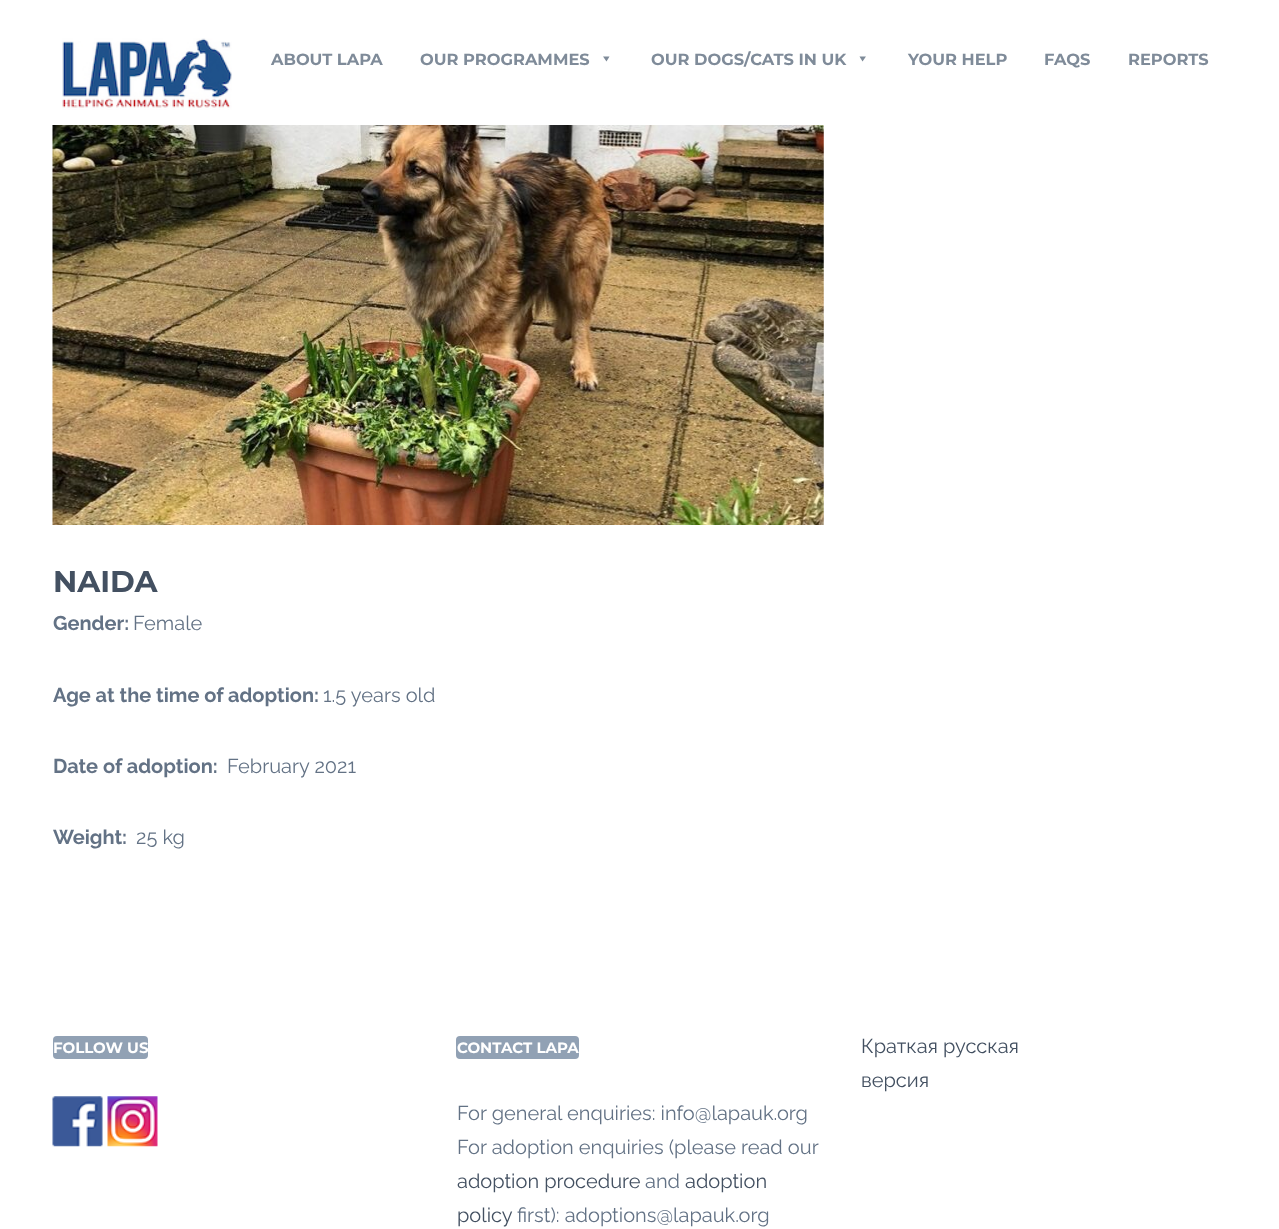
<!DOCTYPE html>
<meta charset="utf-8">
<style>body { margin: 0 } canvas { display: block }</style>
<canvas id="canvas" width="1279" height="1229"></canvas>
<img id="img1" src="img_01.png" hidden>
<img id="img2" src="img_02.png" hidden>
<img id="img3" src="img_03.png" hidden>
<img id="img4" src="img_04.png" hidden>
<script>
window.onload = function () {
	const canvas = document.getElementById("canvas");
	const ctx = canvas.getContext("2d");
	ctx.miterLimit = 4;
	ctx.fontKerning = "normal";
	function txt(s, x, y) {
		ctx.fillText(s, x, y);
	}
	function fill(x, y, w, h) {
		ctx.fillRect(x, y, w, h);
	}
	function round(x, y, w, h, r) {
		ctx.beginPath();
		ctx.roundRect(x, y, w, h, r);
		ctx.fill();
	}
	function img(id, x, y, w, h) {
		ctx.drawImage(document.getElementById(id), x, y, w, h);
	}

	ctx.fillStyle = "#FFFFFF";
	fill(0, 0, 1279, 1229);
	img("img1", 62, 38, 170, 72);
	ctx.fillStyle = "#7F8B99";
	ctx.beginPath();
	ctx.moveTo(609.5, 56.5);
	ctx.lineTo(606.5, 61.5);
	ctx.lineTo(603, 56.5);
	ctx.closePath();
	ctx.fill();
	ctx.beginPath();
	ctx.moveTo(866, 56.5);
	ctx.lineTo(862.5, 61.5);
	ctx.lineTo(859.5, 56.5);
	ctx.closePath();
	ctx.fill();
	img("img2", 52, 125, 772, 400);
	ctx.fillStyle = "#91A1B4";
	round(53, 1036, 95, 23, 4);
	img("img3", 52, 1096, 51, 51);
	img("img4", 107, 1096, 51, 51);
	round(456, 1036, 123, 23, 4);
	ctx.font = "bold 16.25px Montserrat";
	ctx.fillStyle = "#7F8B99";
	txt("ABOUT LAPA", 271, 65);
	txt("OUR PROGRAMMES", 420, 65);
	txt("OUR DOGS/CATS IN UK", 651, 65);
	txt("YOUR HELP", 908, 65);
	txt("FAQS", 1044, 65);
	txt("REPORTS", 1128, 65);
	ctx.font = "bold 30px Montserrat";
	ctx.fillStyle = "#435061";
	txt("NAIDA", 53, 592);
	ctx.font = "bold 20px Raleway";
	ctx.fillStyle = "#637285";
	txt("Gender:", 53, 630);
	ctx.font = "20px Raleway";
	txt("Female", 133, 630);
	ctx.font = "bold 20px Raleway";
	txt("Age at the time of adoption:", 53, 702);
	ctx.font = "20px Raleway";
	txt("1.5 years old", 323, 702);
	ctx.font = "bold 20px Raleway";
	txt("Date of adoption:", 53, 773);
	ctx.font = "20px Raleway";
	txt("February 2021", 227, 773);
	ctx.font = "bold 20px Raleway";
	txt("Weight:", 53, 844);
	ctx.font = "20px Raleway";
	txt("25 kg", 136, 844);
	ctx.font = "bold 15px Montserrat";
	ctx.fillStyle = "#FFFFFF";
	txt("FOLLOW US", 53, 1053);
	txt("CONTACT LAPA", 457, 1053);
	ctx.font = "20px Raleway";
	ctx.fillStyle = "#637285";
	txt("For general enquiries: info@lapauk.org", 457, 1120);
	txt("For adoption enquiries (please read our", 457, 1154);
	ctx.fillStyle = "#435061";
	txt("adoption procedure", 457, 1188);
	ctx.fillStyle = "#637285";
	txt("and", 645, 1188);
	ctx.fillStyle = "#435061";
	txt("adoption", 685, 1188);
	txt("policy", 457, 1222);
	ctx.fillStyle = "#637285";
	txt("first): adoptions@lapauk.org", 517, 1222);
	ctx.fillStyle = "#435061";
	txt("Краткая русская", 861, 1053);
	txt("версия", 861, 1087);
};
</script>
